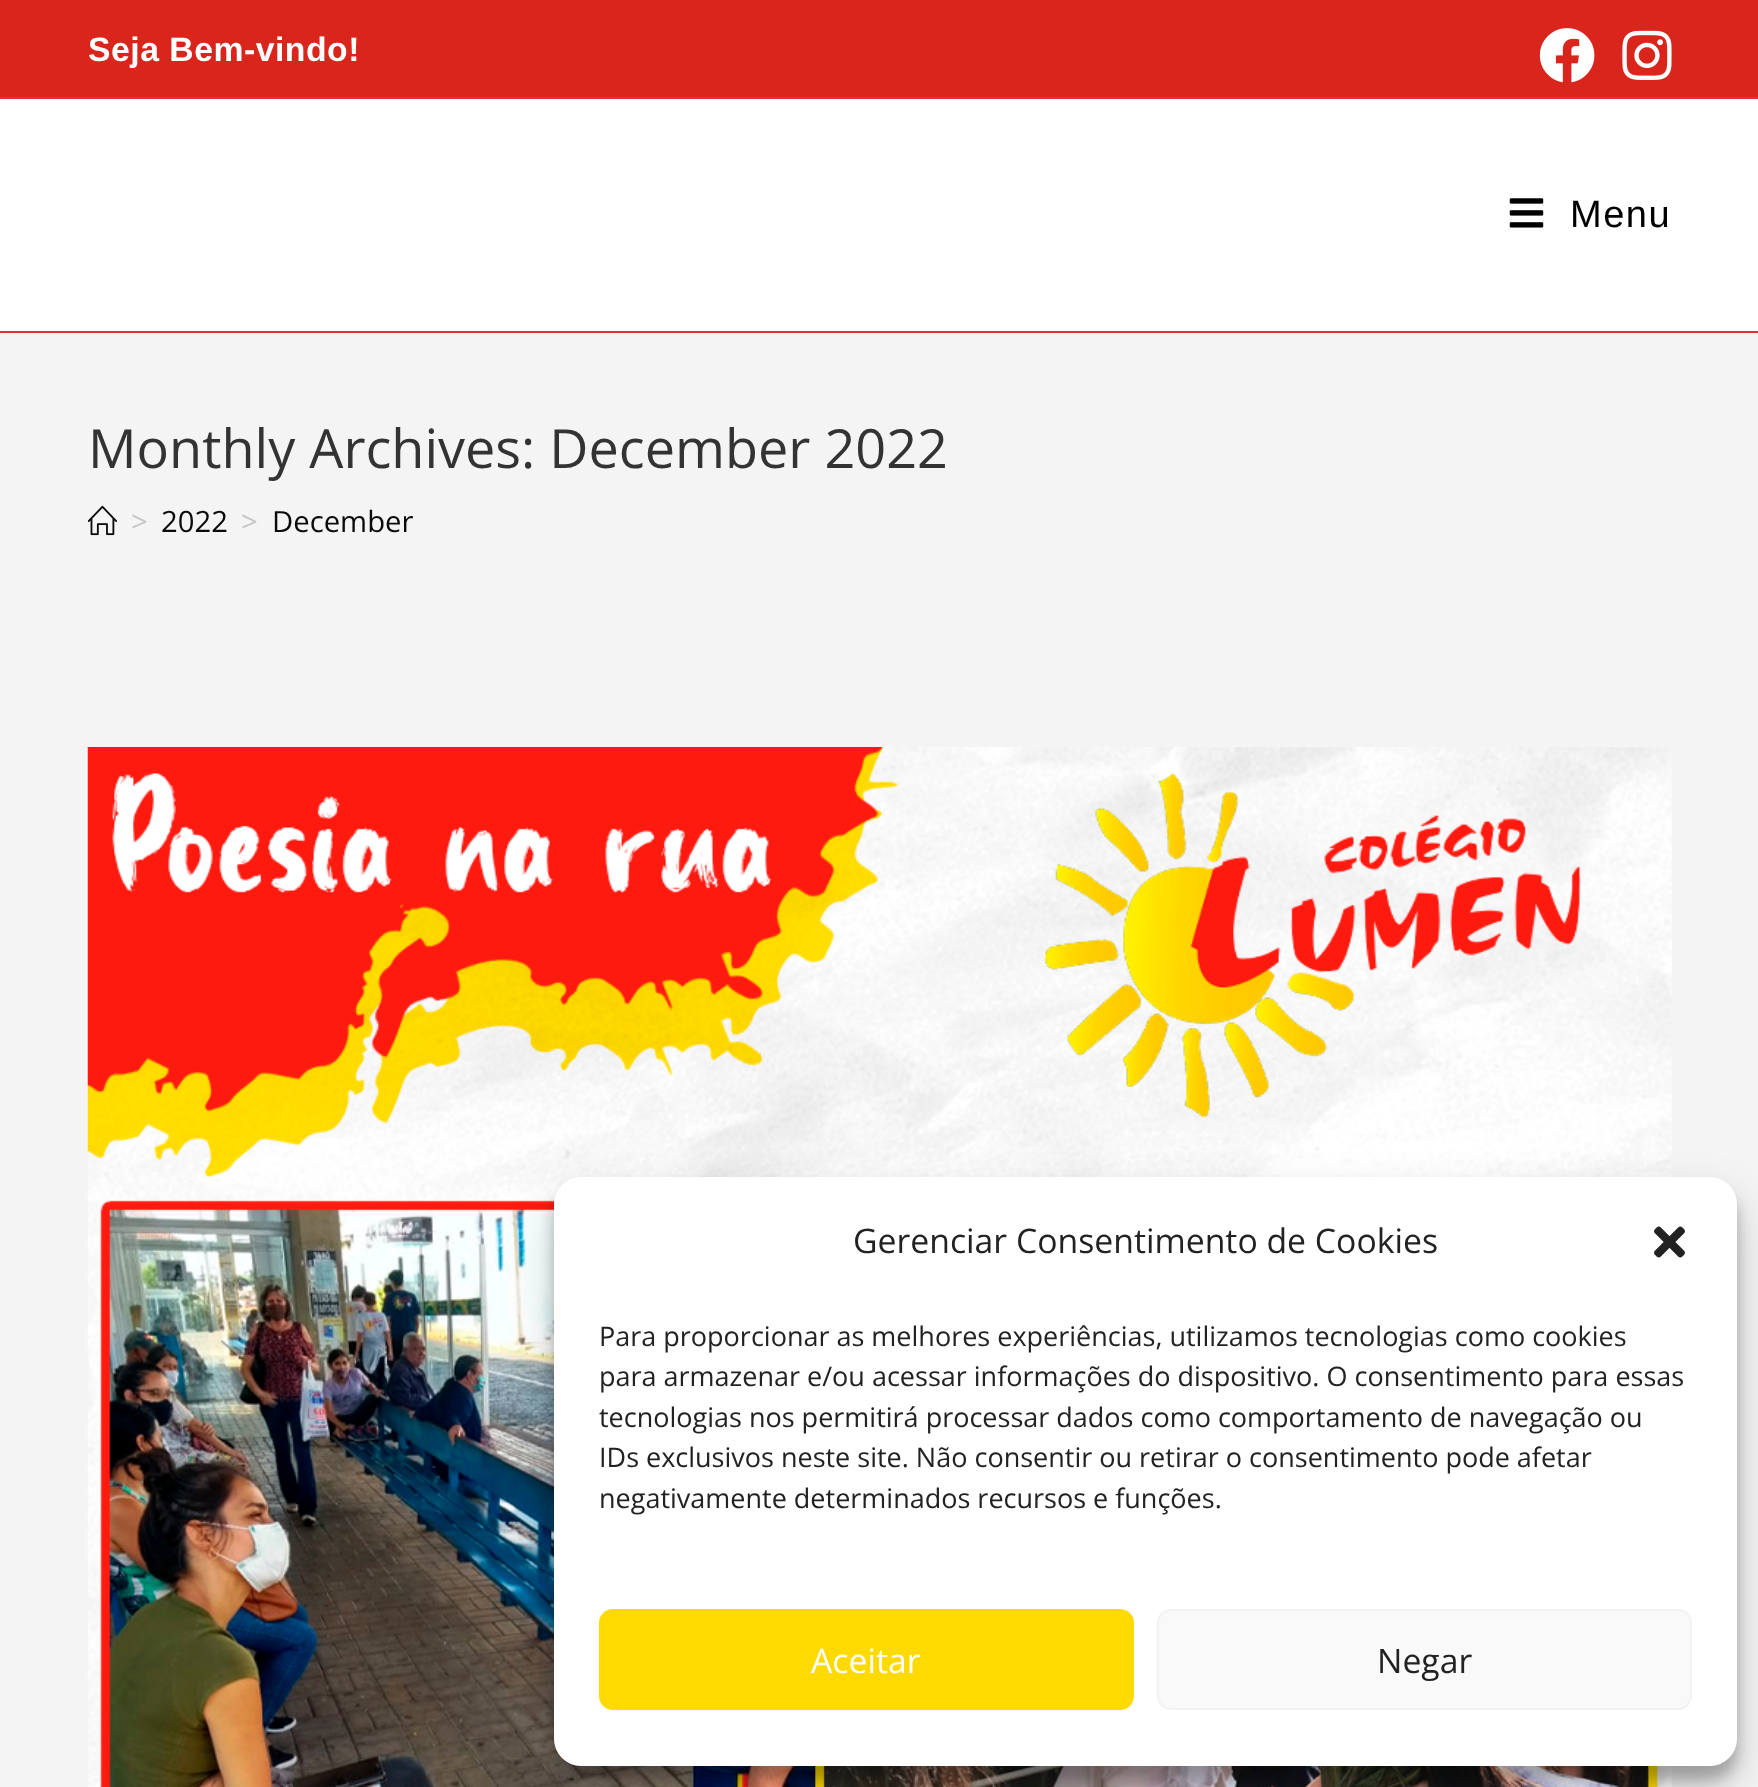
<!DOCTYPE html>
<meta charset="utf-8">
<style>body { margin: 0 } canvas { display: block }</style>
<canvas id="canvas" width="1758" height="1787"></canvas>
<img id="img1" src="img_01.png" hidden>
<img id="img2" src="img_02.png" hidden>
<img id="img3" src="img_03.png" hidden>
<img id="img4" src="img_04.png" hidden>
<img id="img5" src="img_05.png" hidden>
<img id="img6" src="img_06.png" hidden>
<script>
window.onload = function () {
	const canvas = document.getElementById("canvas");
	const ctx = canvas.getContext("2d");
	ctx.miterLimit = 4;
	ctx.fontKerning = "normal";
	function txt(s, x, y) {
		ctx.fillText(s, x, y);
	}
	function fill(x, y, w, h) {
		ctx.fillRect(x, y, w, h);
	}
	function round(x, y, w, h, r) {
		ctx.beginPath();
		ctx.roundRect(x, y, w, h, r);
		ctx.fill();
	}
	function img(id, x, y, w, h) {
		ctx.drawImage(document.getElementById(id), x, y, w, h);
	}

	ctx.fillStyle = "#F4F4F4";
	fill(0, 0, 1758, 1787);
	ctx.fillStyle = "#DA251C";
	fill(0, 0, 1758, 97);
	ctx.fillStyle = "#DD3333";
	fill(0, 97, 1758, 2);
	img("img1", 1539, 28, 56, 55);
	img("img2", 1622, 30, 50, 50);
	ctx.fillStyle = "#FFFFFF";
	fill(0, 99, 1758, 232);
	ctx.fillStyle = "#DD3333";
	fill(0, 331, 1758, 2);
	img("img3", 1509, 198, 35, 30);
	img("img4", 88, 505, 29, 31);
	img("img5", 87, 747, 1585, 1040);
	ctx.fillStyle = "rgba(0, 0, 0, 0.23)";
	ctx.filter = "blur(7px)";
	ctx.beginPath();
	ctx.roundRect(554, 1190, 1183, 590, 27);
	ctx.fill();
	ctx.filter = "none";
	ctx.fillStyle = "rgba(0, 0, 0, 0.19)";
	ctx.filter = "blur(22.5px)";
	ctx.beginPath();
	ctx.roundRect(554, 1199, 1183, 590, 27);
	ctx.fill();
	ctx.filter = "none";
	ctx.fillStyle = "#FFFFFF";
	round(554, 1177, 1183, 589, 27);
	img("img6", 1654, 1226, 31, 32);
	ctx.fillStyle = "#FFDA00";
	ctx.beginPath();
	ctx.roundRect(600, 1610, 533, 99, 13);
	ctx.fill();
	ctx.strokeStyle = "#FFDA00";
	ctx.lineWidth = 2;
	ctx.stroke();
	ctx.fillStyle = "#F9F9F9";
	ctx.beginPath();
	ctx.roundRect(1158, 1610, 533, 99, 13);
	ctx.fill();
	ctx.strokeStyle = "#F2F2F2";
	ctx.stroke();
	ctx.letterSpacing = "0.5px";
	ctx.font = "bold 33.75px Liberation Sans";
	ctx.fillStyle = "#FFFFFF";
	txt("Seja Bem-vindo!", 88, 61);
	ctx.letterSpacing = "1.5px";
	ctx.font = "38px Liberation Sans";
	ctx.fillStyle = "#000000";
	txt("Menu", 1570, 227);
	ctx.letterSpacing = "0px";
	ctx.font = "54px Open Sans";
	ctx.fillStyle = "#333333";
	txt("Monthly Archives: December 2022", 88, 468);
	ctx.font = "29.25px Open Sans";
	ctx.fillStyle = "#C6C6C6";
	txt(">", 131, 532);
	ctx.fillStyle = "#0A0A0A";
	txt("2022", 161, 532);
	ctx.fillStyle = "#C6C6C6";
	txt(">", 241, 532);
	ctx.fillStyle = "#0A0A0A";
	txt("December", 272, 532);
	ctx.font = "33.75px Open Sans";
	ctx.fillStyle = "#222222";
	txt("Gerenciar Consentimento de Cookies", 853, 1253);
	ctx.font = "27px Open Sans";
	txt("Para proporcionar as melhores experiências, utilizamos tecnologias como cookies", 599, 1346);
	txt("para armazenar e/ou acessar informações do dispositivo. O consentimento para essas", 599, 1386);
	txt("tecnologias nos permitirá processar dados como comportamento de navegação ou", 599, 1427);
	txt("IDs exclusivos neste site. Não consentir ou retirar o consentimento pode afetar", 599, 1467);
	txt("negativamente determinados recursos e funções.", 599, 1508);
	ctx.font = "33.75px Open Sans";
	ctx.fillStyle = "#FFFFFF";
	txt("Aceitar", 811, 1673);
	ctx.fillStyle = "#222222";
	txt("Negar", 1377, 1673);
};
</script>
